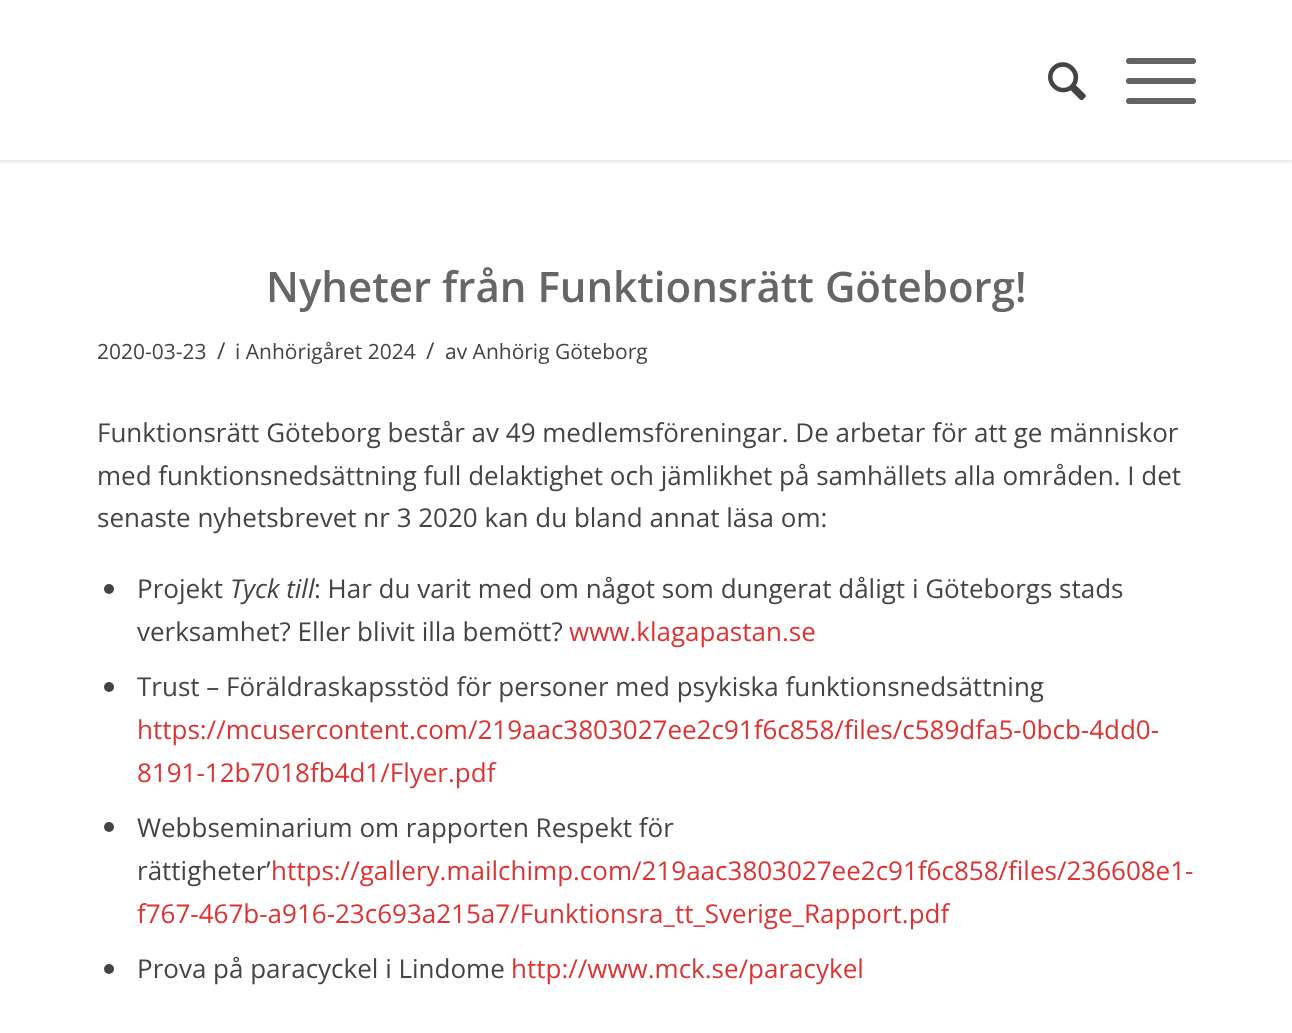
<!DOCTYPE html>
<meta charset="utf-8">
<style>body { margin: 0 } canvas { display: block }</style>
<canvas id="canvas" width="1292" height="1033"></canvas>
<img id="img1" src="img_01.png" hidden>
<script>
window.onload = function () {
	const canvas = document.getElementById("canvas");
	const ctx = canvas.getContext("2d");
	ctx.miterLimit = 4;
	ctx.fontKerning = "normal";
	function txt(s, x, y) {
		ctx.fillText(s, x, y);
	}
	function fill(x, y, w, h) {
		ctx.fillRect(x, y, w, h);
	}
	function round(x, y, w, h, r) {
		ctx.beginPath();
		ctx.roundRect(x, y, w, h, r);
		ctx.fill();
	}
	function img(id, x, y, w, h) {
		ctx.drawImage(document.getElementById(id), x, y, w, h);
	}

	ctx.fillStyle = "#FFFFFF";
	fill(0, 0, 1292, 1033);
	ctx.save();
	ctx.beginPath();
	ctx.rect(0, 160, 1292, 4);
	ctx.clip();
	ctx.fillStyle = "rgba(0, 0, 0, 0.1)";
	ctx.filter = "blur(2px)";
	ctx.beginPath();
	ctx.rect(-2, -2, 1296, 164);
	ctx.fill();
	ctx.filter = "none";
	ctx.restore();
	img("img1", 1048, 62, 38, 39);
	ctx.fillStyle = "#636363";
	round(1126, 78, 70, 6, 3);
	round(1126, 58, 70, 6, 3);
	round(1126, 98, 70, 6, 3);
	ctx.fillStyle = "#444444";
	ctx.beginPath();
	ctx.arc(109, 589, 5, 0, Math.PI * 2);
	ctx.fill();
	ctx.beginPath();
	ctx.arc(109, 687, 5, 0, Math.PI * 2);
	ctx.fill();
	ctx.beginPath();
	ctx.arc(109, 827, 5, 0, Math.PI * 2);
	ctx.fill();
	ctx.beginPath();
	ctx.arc(109, 969, 5, 0, Math.PI * 2);
	ctx.fill();
	ctx.font = "600 42px Open Sans";
	ctx.fillStyle = "#666666";
	txt("Nyheter från Funktionsrätt Göteborg!", 266, 302);
	ctx.font = "21px Open Sans";
	ctx.fillStyle = "#444444";
	txt("2020-03-23", 97, 359);
	ctx.font = "23px Open Sans";
	txt("/", 217, 359);
	ctx.font = "21px Open Sans";
	txt("i Anhörigåret 2024", 235, 359);
	ctx.font = "23px Open Sans";
	txt("/", 426, 359);
	ctx.font = "21px Open Sans";
	txt("av Anhörig Göteborg", 445, 359);
	ctx.font = "26px Open Sans";
	txt("Funktionsrätt Göteborg består av 49 medlemsföreningar. De arbetar för att ge människor", 97, 442);
	txt("med funktionsnedsättning full delaktighet och jämlikhet på samhällets alla områden. I det", 97, 485);
	txt("senaste nyhetsbrevet nr 3 2020 kan du bland annat läsa om:", 97, 527);
	txt("Projekt", 137, 598);
	ctx.font = "italic 26px Open Sans";
	txt("Tyck till", 230, 598);
	ctx.font = "26px Open Sans";
	txt(": Har du varit med om något som dungerat dåligt i Göteborgs stads", 314, 598);
	txt("verksamhet? Eller blivit illa bemött?", 137, 641);
	ctx.fillStyle = "#DD3333";
	txt("www.klagapastan.se", 569, 641);
	ctx.fillStyle = "#444444";
	txt("Trust – Föräldraskapsstöd för personer med psykiska funktionsnedsättning", 137, 696);
	ctx.fillStyle = "#DD3333";
	txt("https://mcusercontent.com/219aac3803027ee2c91f6c858/files/c589dfa5-0bcb-4dd0-", 137, 739);
	txt("8191-12b7018fb4d1/Flyer.pdf", 137, 782);
	ctx.fillStyle = "#444444";
	txt("Webbseminarium om rapporten Respekt för", 137, 837);
	txt("rättigheter’", 137, 880);
	ctx.fillStyle = "#DD3333";
	txt("https://gallery.mailchimp.com/219aac3803027ee2c91f6c858/files/236608e1-", 271, 880);
	txt("f767-467b-a916-23c693a215a7/Funktionsra_tt_Sverige_Rapport.pdf", 137, 923);
	ctx.fillStyle = "#444444";
	txt("Prova på paracyckel i Lindome", 137, 978);
	ctx.fillStyle = "#DD3333";
	txt("http://www.mck.se/paracykel", 511, 978);
};
</script>
